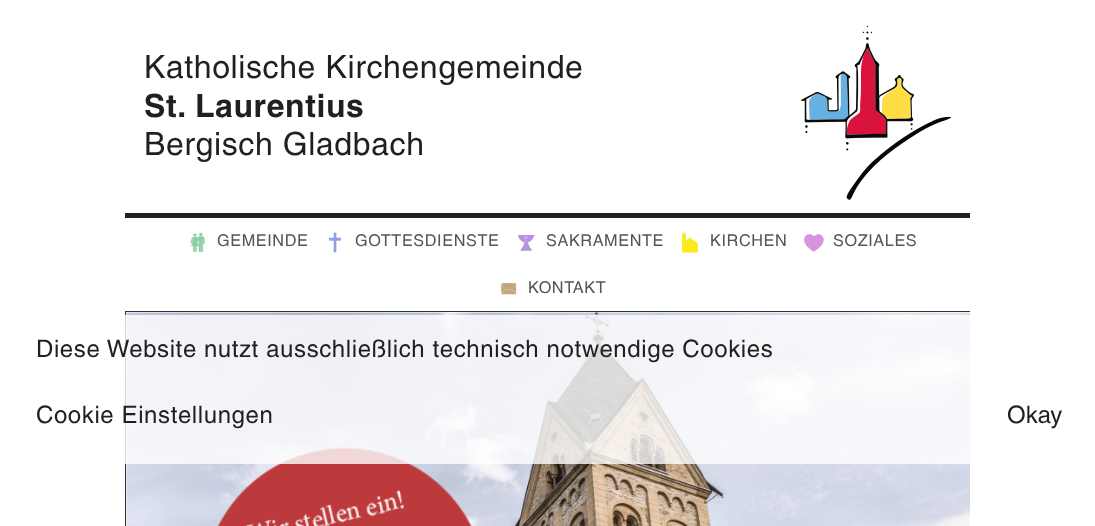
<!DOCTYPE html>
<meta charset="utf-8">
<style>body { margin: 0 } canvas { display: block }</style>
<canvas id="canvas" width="1095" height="526"></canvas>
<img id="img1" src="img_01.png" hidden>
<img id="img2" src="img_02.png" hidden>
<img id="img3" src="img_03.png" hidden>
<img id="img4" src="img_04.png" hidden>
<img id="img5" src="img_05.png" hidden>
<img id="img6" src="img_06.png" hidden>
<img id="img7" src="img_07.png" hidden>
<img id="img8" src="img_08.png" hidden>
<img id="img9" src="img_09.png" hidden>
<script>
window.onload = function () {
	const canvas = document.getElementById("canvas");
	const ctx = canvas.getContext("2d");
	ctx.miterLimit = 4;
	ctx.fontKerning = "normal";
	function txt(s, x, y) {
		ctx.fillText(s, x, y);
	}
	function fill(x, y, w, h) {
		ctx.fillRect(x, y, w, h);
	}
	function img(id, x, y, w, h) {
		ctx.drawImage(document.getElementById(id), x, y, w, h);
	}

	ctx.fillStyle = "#FFFFFF";
	fill(0, 0, 1095, 526);
	img("img1", 801, 25, 150, 175);
	ctx.fillStyle = "#231F20";
	fill(125, 213, 845, 5);
	img("img2", 187, 232, 21, 21);
	img("img3", 328, 232, 14, 21);
	img("img4", 518, 235, 17, 16);
	img("img5", 682, 232, 16, 21);
	img("img6", 803, 234, 21, 18);
	img("img7", 501, 283, 16, 12);
	ctx.save();
	ctx.beginPath();
	ctx.rect(125, 311, 845, 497);
	ctx.clip();
	ctx.strokeStyle = "#333333";
	ctx.strokeRect(125.5, 311.5, 847, 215);
	ctx.restore();
	img("img8", 126, 312, 844, 214);
	img("img9", 217, 447, 255, 79);
	ctx.fillStyle = "rgba(255, 255, 255, 0.8)";
	fill(125, 315, 845, 149);
	ctx.letterSpacing = "0.6px";
	ctx.font = "32px Helvetica";
	ctx.fillStyle = "#231F20";
	txt("Katholische Kirchengemeinde", 144, 78);
	ctx.font = "bold 32px Helvetica";
	txt("St. Laurentius", 144, 117);
	ctx.font = "32px Helvetica";
	txt("Bergisch Gladbach", 144, 155);
	ctx.font = "16.25px Helvetica";
	ctx.fillStyle = "#565656";
	txt("GEMEINDE", 217, 246);
	txt("GOTTESDIENSTE", 355, 246);
	txt("SAKRAMENTE", 546, 246);
	txt("KIRCHEN", 710, 246);
	txt("SOZIALES", 833, 246);
	txt("KONTAKT", 528, 293);
	ctx.font = "24px Helvetica";
	ctx.fillStyle = "#231F20";
	txt("Diese Website nutzt ausschließlich technisch notwendige Cookies", 36, 357);
	txt("Cookie Einstellungen", 36, 423);
	ctx.letterSpacing = "0px";
	txt("Okay", 1007, 423);
};
</script>
